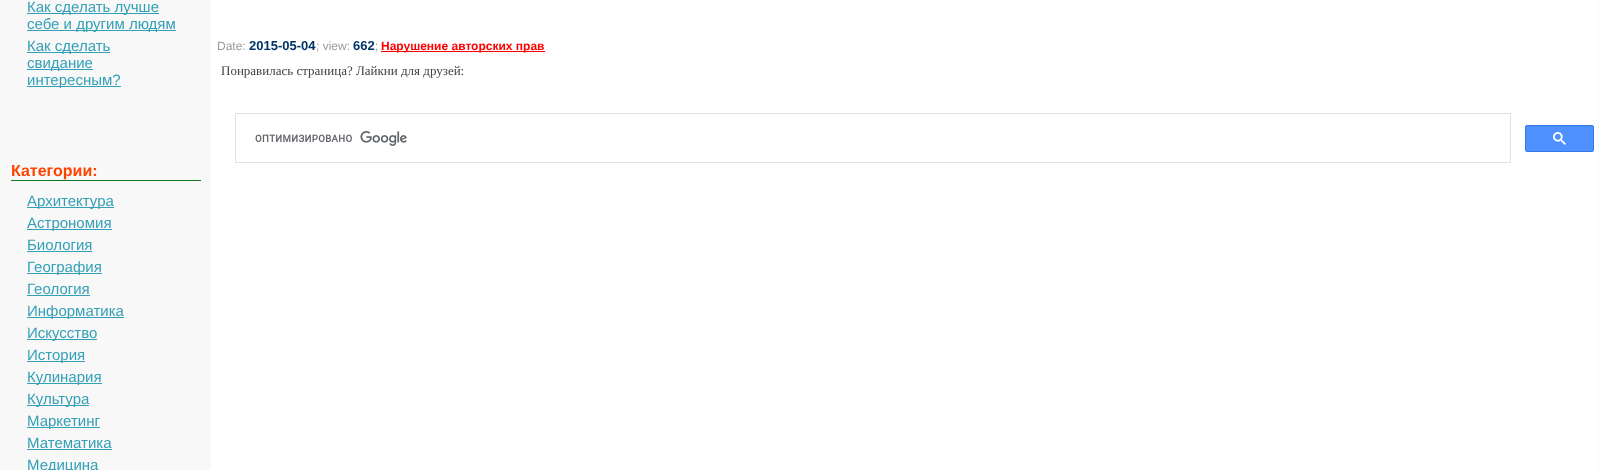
<!DOCTYPE html>
<meta charset="utf-8">
<style>body { margin: 0 } canvas { display: block }</style>
<canvas id="canvas" width="1599" height="470"></canvas>
<img id="img1" src="img_01.png" hidden>
<img id="img2" src="img_02.png" hidden>
<script>
window.onload = function () {
	const canvas = document.getElementById("canvas");
	const ctx = canvas.getContext("2d");
	ctx.miterLimit = 4;
	ctx.fontKerning = "normal";
	function txt(s, x, y) {
		ctx.fillText(s, x, y);
	}
	function fill(x, y, w, h) {
		ctx.fillRect(x, y, w, h);
	}
	function img(id, x, y, w, h) {
		ctx.drawImage(document.getElementById(id), x, y, w, h);
	}

	ctx.fillStyle = "#F0FFF0";
	fill(0, 0, 1599, 470);
	ctx.fillStyle = "#F8F8F8";
	fill(1, 0, 210, 470);
	ctx.fillStyle = "#34A0B7";
	fill(27, 13, 132, 1);
	fill(27, 30, 149, 1);
	fill(27, 52, 83, 1);
	fill(27, 69, 66, 1);
	fill(27, 86, 94, 1);
	ctx.fillStyle = "#157721";
	fill(11, 180, 190, 1);
	ctx.fillStyle = "#34A0B7";
	fill(27, 207, 87, 1);
	fill(27, 229, 85, 1);
	fill(27, 251, 65, 1);
	fill(27, 273, 75, 1);
	fill(27, 295, 63, 1);
	fill(27, 317, 97, 1);
	fill(27, 339, 70, 1);
	fill(27, 361, 58, 1);
	fill(27, 383, 75, 1);
	fill(27, 405, 62, 1);
	fill(27, 427, 73, 1);
	fill(27, 449, 85, 1);
	ctx.fillStyle = "#FFFFFF";
	fill(211, 0, 1387, 470);
	ctx.fillStyle = "#FF0000";
	fill(381, 51, 164, 1);
	ctx.strokeStyle = "#DFE1E5";
	ctx.strokeRect(235.5, 113.5, 1275, 49);
	img("img1", 255, 131, 152, 15);
	ctx.fillStyle = "#4D90FE";
	ctx.beginPath();
	ctx.roundRect(1525.5, 125.5, 68, 26, 1.5);
	ctx.fill();
	ctx.strokeStyle = "#3079ED";
	ctx.stroke();
	img("img2", 1553, 132, 13, 13);
	ctx.font = "15px Liberation Sans";
	ctx.fillStyle = "#34A0B7";
	txt("Как сделать лучше", 27, 12);
	txt("себе и другим людям", 27, 29);
	txt("Как сделать", 27, 51);
	txt("свидание", 27, 68);
	txt("интересным?", 27, 85);
	ctx.font = "bold 16px Liberation Sans";
	ctx.fillStyle = "#FF4400";
	txt("Категории:", 11, 176);
	ctx.font = "15px Liberation Sans";
	ctx.fillStyle = "#34A0B7";
	txt("Архитектура", 27, 206);
	txt("Астрономия", 27, 228);
	txt("Биология", 27, 250);
	txt("География", 27, 272);
	txt("Геология", 27, 294);
	txt("Информатика", 27, 316);
	txt("Искусство", 27, 338);
	txt("История", 27, 360);
	txt("Кулинария", 27, 382);
	txt("Культура", 27, 404);
	txt("Маркетинг", 27, 426);
	txt("Математика", 27, 448);
	txt("Медицина", 27, 470);
	ctx.font = "12px Liberation Sans";
	ctx.fillStyle = "#999999";
	txt("Date:", 217, 50);
	ctx.font = "bold 13px Liberation Sans";
	ctx.fillStyle = "#003366";
	txt("2015-05-04", 249, 50);
	ctx.font = "12px Liberation Sans";
	ctx.fillStyle = "#999999";
	txt("; view:", 316, 50);
	ctx.font = "bold 13px Liberation Sans";
	ctx.fillStyle = "#003366";
	txt("662", 353, 50);
	ctx.font = "12px Liberation Sans";
	ctx.fillStyle = "#999999";
	txt(";", 375, 50);
	ctx.font = "bold 12px Liberation Sans";
	ctx.fillStyle = "#FF0000";
	txt("Нарушение авторских прав", 381, 50);
	ctx.font = "13px Liberation Serif";
	ctx.fillStyle = "#424242";
	txt("Понравилась страница? Лайкни для друзей:", 221, 75);
};
</script>
